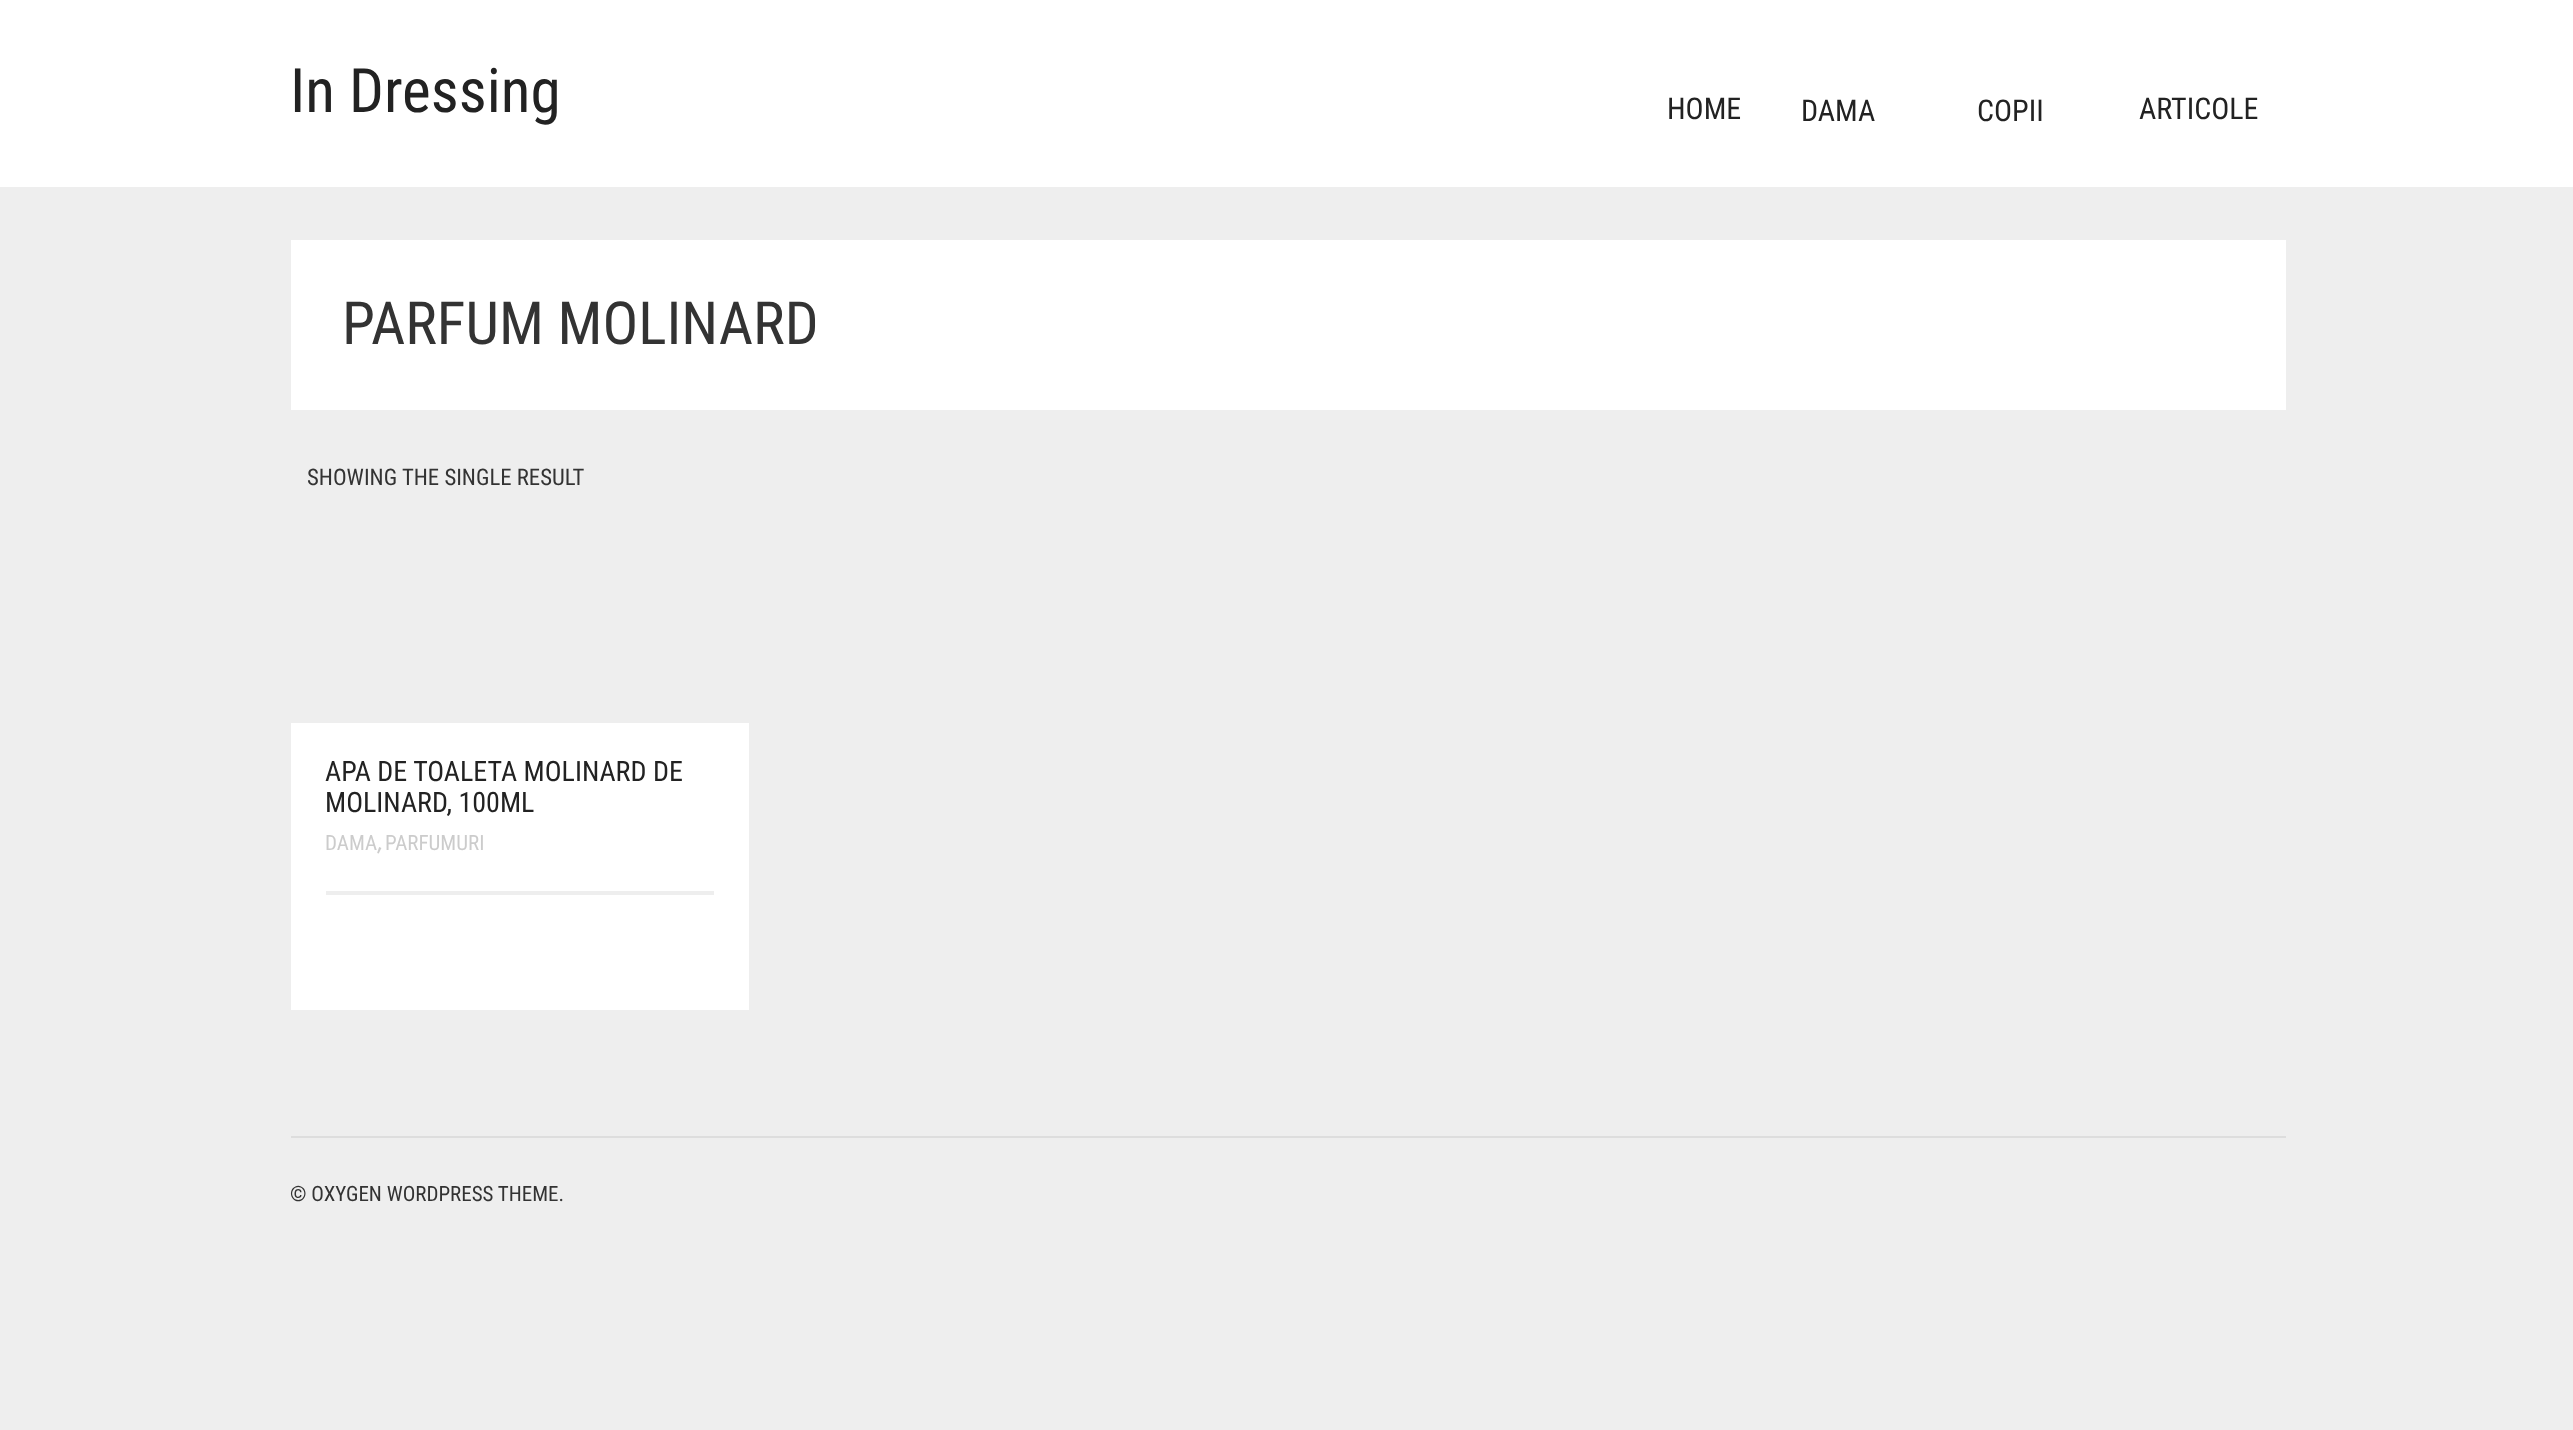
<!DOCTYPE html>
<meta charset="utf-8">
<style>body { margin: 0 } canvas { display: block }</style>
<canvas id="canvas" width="2573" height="1430"></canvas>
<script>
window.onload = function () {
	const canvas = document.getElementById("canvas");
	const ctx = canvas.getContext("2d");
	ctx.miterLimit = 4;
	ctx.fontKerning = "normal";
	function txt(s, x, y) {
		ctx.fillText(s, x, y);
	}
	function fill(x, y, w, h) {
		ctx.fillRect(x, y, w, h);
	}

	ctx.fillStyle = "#EEEEEE";
	fill(0, 0, 2573, 1430);
	ctx.fillStyle = "#FFFFFF";
	fill(0, 0, 2573, 187);
	fill(291, 240, 1995, 170);
	fill(291, 723, 458, 287);
	ctx.fillStyle = "#EEEEEE";
	fill(326, 891, 388, 4);
	ctx.fillStyle = "#DDDDDD";
	fill(291, 1136, 1995, 2);
	ctx.font = "61.25px Roboto Condensed";
	ctx.fillStyle = "#222222";
	txt("In Dressing", 290, 112);
	ctx.font = "30px Roboto Condensed";
	txt("HOME", 1667, 119);
	txt("DAMA", 1801, 121);
	txt("COPII", 1977, 121);
	txt("ARTICOLE", 2139, 119);
	ctx.font = "59.5px Roboto Condensed";
	ctx.fillStyle = "#333333";
	txt("PARFUM MOLINARD", 342, 344);
	ctx.font = "22.75px Roboto Condensed";
	txt("SHOWING THE SINGLE RESULT", 307, 485);
	ctx.font = "28px Roboto Condensed";
	ctx.fillStyle = "#222222";
	txt("APA DE TOALETA MOLINARD DE", 325, 781);
	txt("MOLINARD, 100ML", 325, 812);
	ctx.font = "21px Roboto Condensed";
	ctx.fillStyle = "#CCCCCC";
	txt("DAMA", 325, 850);
	ctx.font = "21px Arvo";
	txt(",", 377, 850);
	ctx.font = "21px Roboto Condensed";
	txt("PARFUMURI", 385, 850);
	ctx.fillStyle = "#333333";
	txt("© OXYGEN WORDPRESS THEME.", 290, 1201);
};
</script>
